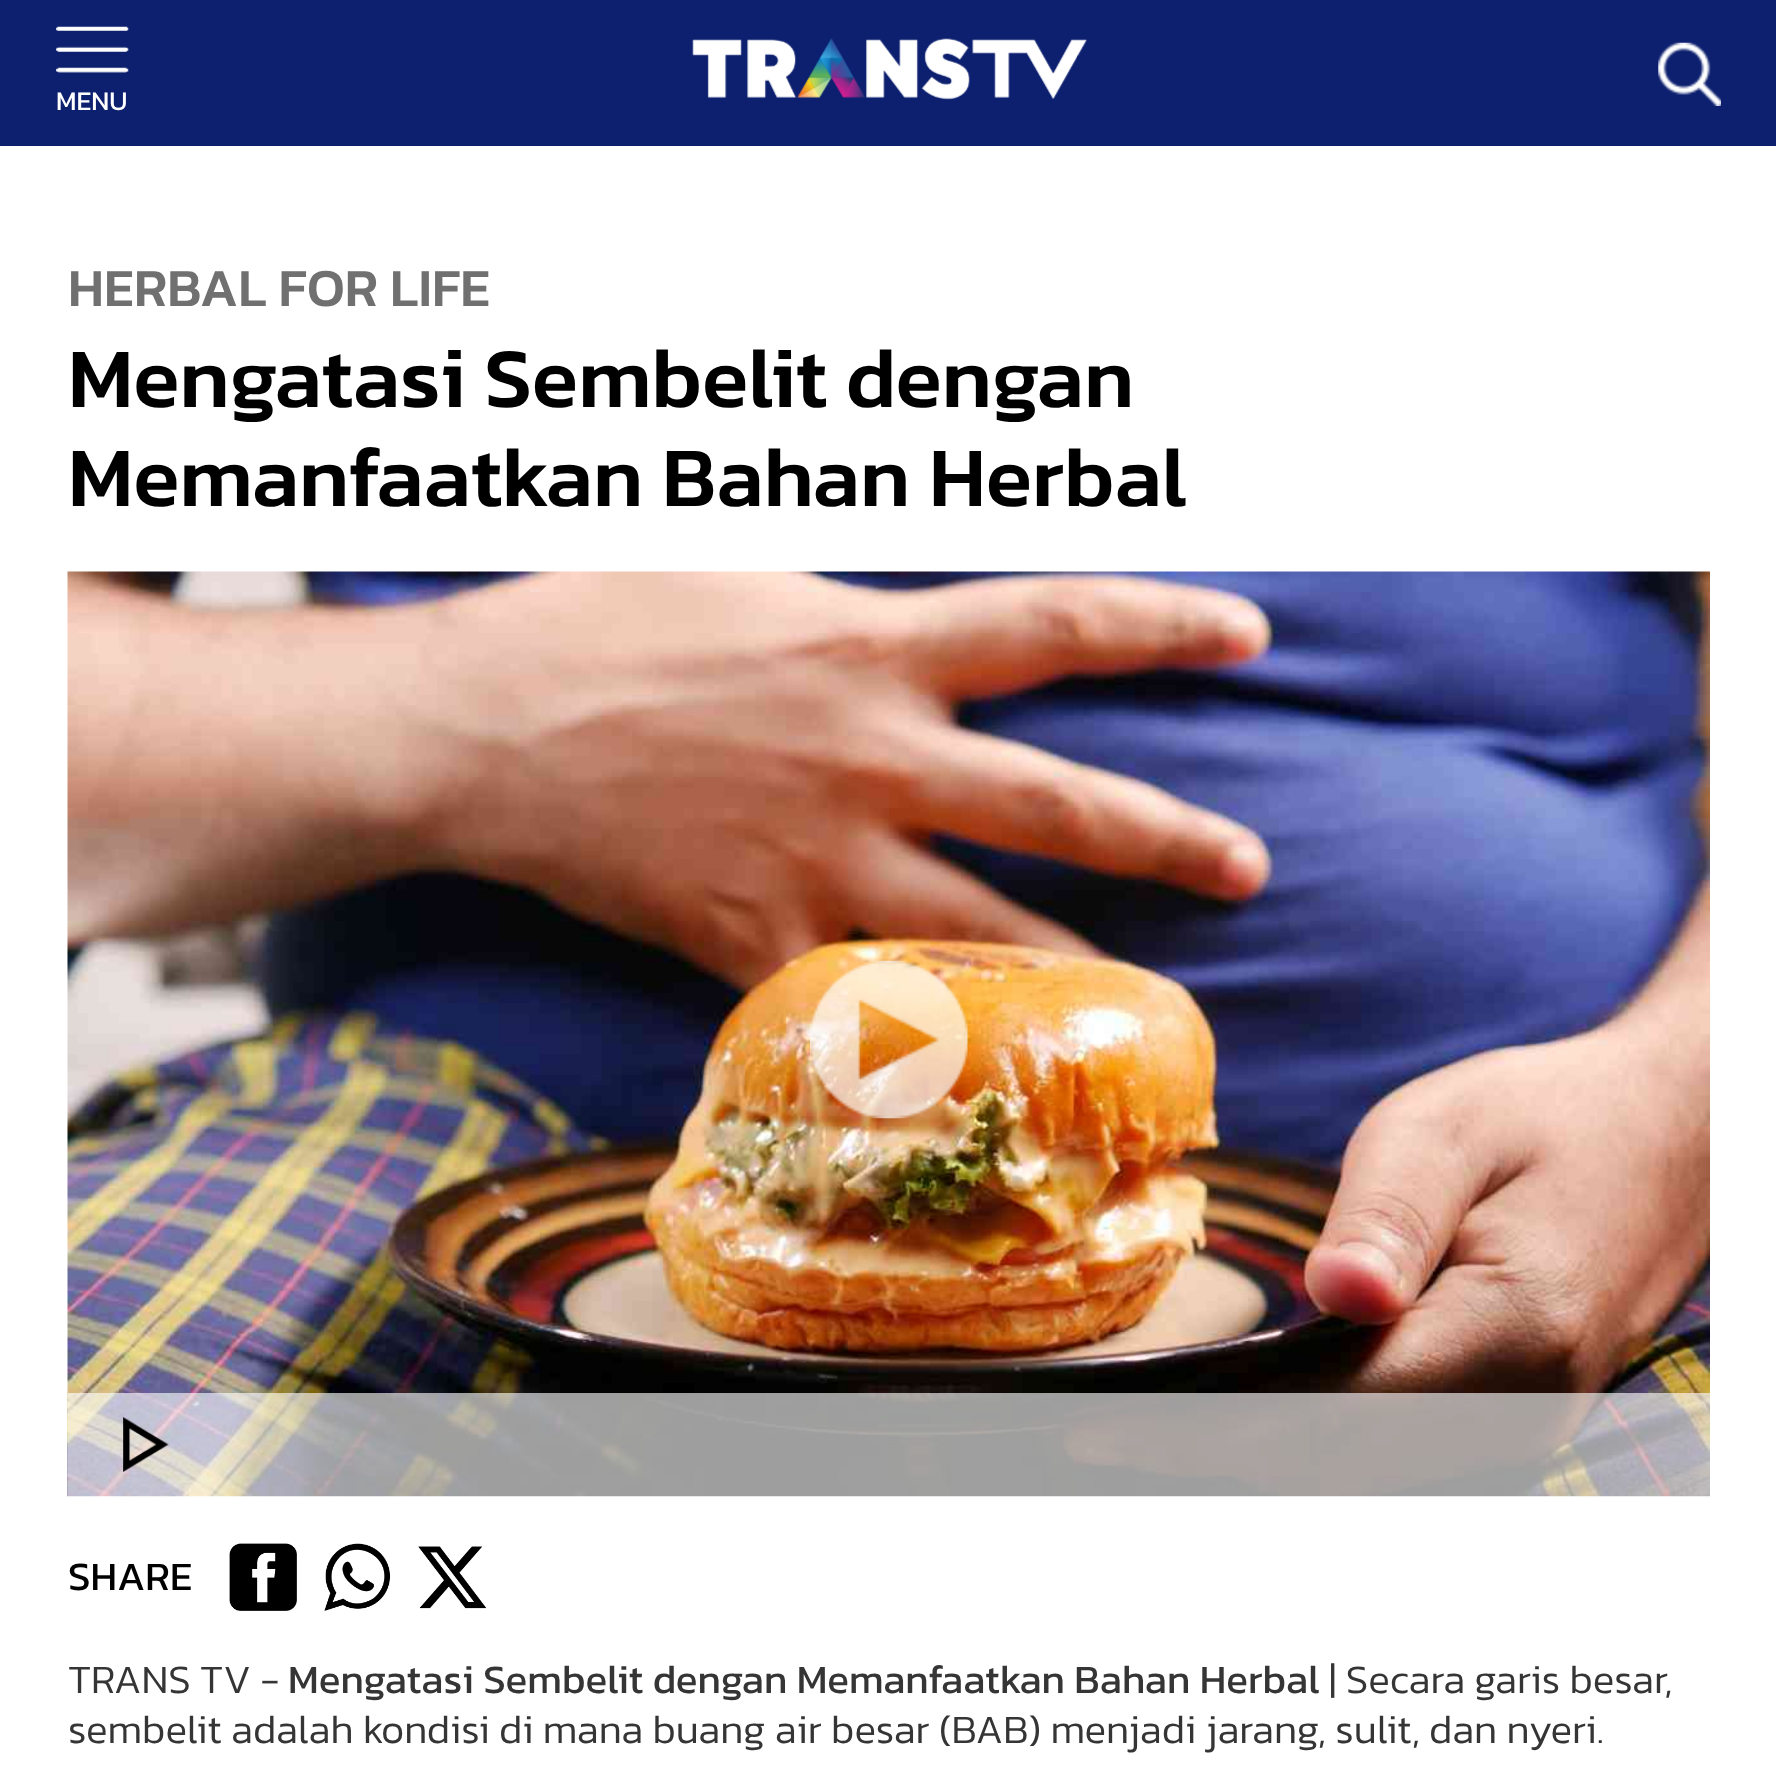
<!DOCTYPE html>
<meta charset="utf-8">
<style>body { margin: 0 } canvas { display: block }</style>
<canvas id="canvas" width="1776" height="1767"></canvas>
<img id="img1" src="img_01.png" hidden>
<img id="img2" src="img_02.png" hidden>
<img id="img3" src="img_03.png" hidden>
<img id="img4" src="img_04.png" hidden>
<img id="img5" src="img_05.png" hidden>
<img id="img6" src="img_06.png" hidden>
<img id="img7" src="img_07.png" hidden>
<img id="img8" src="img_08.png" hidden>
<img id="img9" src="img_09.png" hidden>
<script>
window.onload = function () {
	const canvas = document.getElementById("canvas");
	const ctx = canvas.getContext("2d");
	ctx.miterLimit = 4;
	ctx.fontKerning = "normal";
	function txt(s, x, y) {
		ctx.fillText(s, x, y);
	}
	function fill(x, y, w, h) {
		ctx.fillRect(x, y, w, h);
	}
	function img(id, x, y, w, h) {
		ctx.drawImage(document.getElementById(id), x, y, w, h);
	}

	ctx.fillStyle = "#FFFFFF";
	fill(0, 0, 1776, 1767);
	ctx.fillStyle = "#0D206F";
	fill(0, 0, 1776, 146);
	img("img1", 56, 26, 73, 47);
	img("img2", 692, 38, 395, 62);
	img("img3", 1658, 42, 63, 64);
	img("img4", 67, 571, 1643, 926);
	img("img5", 810, 960, 158, 159);
	ctx.fillStyle = "rgba(255, 255, 255, 0.62)";
	fill(68, 1393, 1642, 104);
	img("img6", 123, 1417, 46, 55);
	img("img7", 229, 1543, 68, 68);
	img("img8", 324, 1543, 67, 68);
	img("img9", 418, 1546, 68, 63);
	ctx.font = "27px Kanit";
	ctx.fillStyle = "#FFFFFF";
	txt("MENU", 56, 110);
	ctx.font = "500 54px Kanit";
	ctx.fillStyle = "#707070";
	txt("HERBAL FOR LIFE", 68, 306);
	ctx.font = "500 85.5px Kanit";
	ctx.fillStyle = "#000000";
	txt("Mengatasi Sembelit dengan", 68, 407);
	txt("Memanfaatkan Bahan Herbal", 68, 506);
	ctx.font = "40.5px Kanit";
	txt("SHARE", 68, 1590);
	ctx.font = "300 40.5px Kanit";
	ctx.fillStyle = "#353535";
	txt("TRANS TV -", 68, 1693);
	ctx.font = "40.5px Kanit";
	txt("Mengatasi Sembelit dengan Memanfaatkan Bahan Herbal", 288, 1693);
	ctx.font = "300 40.5px Kanit";
	txt("| Secara garis besar,", 1329, 1693);
	txt("sembelit adalah kondisi di mana buang air besar (BAB) menjadi jarang, sulit, dan nyeri.", 68, 1743);
};
</script>
